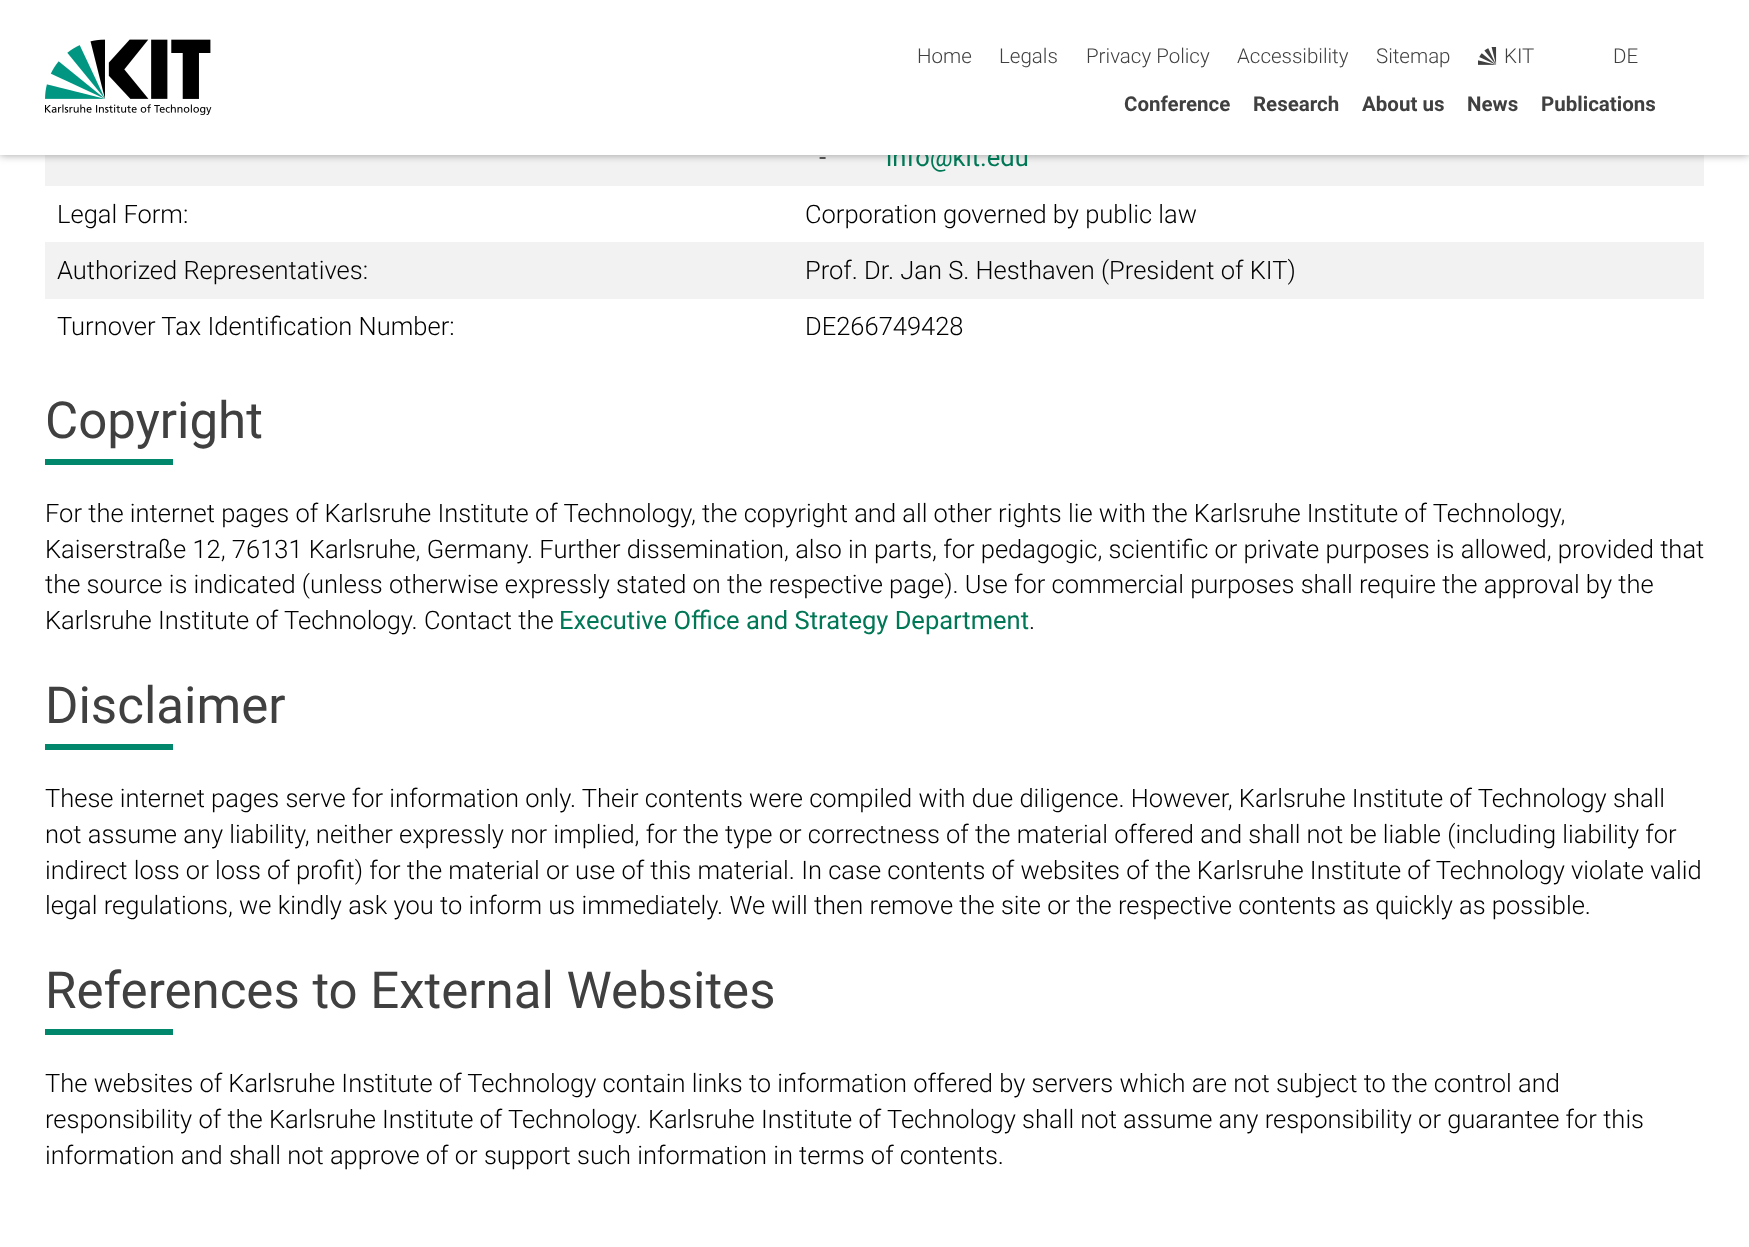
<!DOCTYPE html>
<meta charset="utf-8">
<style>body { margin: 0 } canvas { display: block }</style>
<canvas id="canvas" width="1749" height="1247"></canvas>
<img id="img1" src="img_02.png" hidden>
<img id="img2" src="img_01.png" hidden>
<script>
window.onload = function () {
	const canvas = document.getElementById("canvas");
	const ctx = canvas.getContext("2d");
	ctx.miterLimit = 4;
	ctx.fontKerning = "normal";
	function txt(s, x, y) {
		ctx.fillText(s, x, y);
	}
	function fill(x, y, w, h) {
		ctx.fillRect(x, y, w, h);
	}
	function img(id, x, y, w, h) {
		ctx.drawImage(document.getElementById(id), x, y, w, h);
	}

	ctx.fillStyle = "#FFFFFF";
	fill(0, 0, 1749, 1247);
	ctx.fillStyle = "#F2F2F2";
	fill(45, 155, 1659, 31);
	ctx.fillStyle = "rgba(64, 64, 64, 0.5)";
	ctx.filter = "blur(4px)";
	ctx.beginPath();
	ctx.rect(0, 0, 1749, 155);
	ctx.fill();
	ctx.filter = "none";
	ctx.fillStyle = "#F2F2F2";
	fill(45, 242, 1659, 57);
	ctx.fillStyle = "#00876C";
	fill(45, 459, 128, 6);
	fill(45, 744, 128, 6);
	fill(45, 1029, 128, 6);
	ctx.font = "300 25.5px Roboto";
	ctx.fillStyle = "#000000";
	txt("-", 819, 166);
	ctx.font = "25.5px Roboto";
	ctx.fillStyle = "#007755";
	txt("info@kit.edu", 886, 166);
	ctx.fillStyle = "#FFFFFF";
	fill(0, 0, 1749, 155);
	img("img1", 1478, 47, 19, 18);
	ctx.font = "300 20.5px Roboto";
	ctx.fillStyle = "#404040";
	txt("DE", 1613, 63);
	txt("KIT", 1504, 63);
	txt("Sitemap", 1376, 63);
	txt("Accessibility", 1237, 63);
	txt("Privacy Policy", 1086, 63);
	txt("Legals", 999, 63);
	txt("Home", 917, 63);
	ctx.font = "bold 20.5px Roboto";
	txt("Publications", 1541, 111);
	txt("News", 1467, 111);
	txt("About us", 1362, 111);
	txt("Research", 1253, 111);
	txt("Conference", 1124, 111);
	img("img2", 45, 39, 167, 76);
	ctx.font = "300 25.5px Roboto";
	ctx.fillStyle = "#000000";
	txt("Legal Form:", 57, 223);
	txt("Corporation governed by public law", 805, 223);
	txt("Authorized Representatives:", 57, 279);
	txt("Prof. Dr. Jan S. Hesthaven (President of KIT)", 805, 279);
	txt("Turnover Tax Identification Number:", 57, 335);
	txt("DE266749428", 805, 335);
	ctx.font = "51px Roboto";
	ctx.fillStyle = "#404040";
	txt("Copyright", 45, 438);
	ctx.font = "300 25.5px Roboto";
	ctx.fillStyle = "#000000";
	txt("For the internet pages of Karlsruhe Institute of Technology, the copyright and all other rights lie with the Karlsruhe Institute of Technology,", 45, 522);
	txt("Kaiserstraße 12, 76131 Karlsruhe, Germany. Further dissemination, also in parts, for pedagogic, scientific or private purposes is allowed, provided that", 45, 558);
	txt("the source is indicated (unless otherwise expressly stated on the respective page). Use for commercial purposes shall require the approval by the", 45, 593);
	txt("Karlsruhe Institute of Technology. Contact the", 45, 629);
	ctx.font = "25.5px Roboto";
	ctx.fillStyle = "#007755";
	txt("Executive Office and Strategy Department", 559, 629);
	ctx.font = "300 25.5px Roboto";
	ctx.fillStyle = "#000000";
	txt(".", 1029, 629);
	ctx.font = "51px Roboto";
	ctx.fillStyle = "#404040";
	txt("Disclaimer", 45, 723);
	ctx.font = "300 25.5px Roboto";
	ctx.fillStyle = "#000000";
	txt("These internet pages serve for information only. Their contents were compiled with due diligence. However, Karlsruhe Institute of Technology shall", 45, 807);
	txt("not assume any liability, neither expressly nor implied, for the type or correctness of the material offered and shall not be liable (including liability for", 45, 843);
	txt("indirect loss or loss of profit) for the material or use of this material. In case contents of websites of the Karlsruhe Institute of Technology violate valid", 45, 879);
	txt("legal regulations, we kindly ask you to inform us immediately. We will then remove the site or the respective contents as quickly as possible.", 45, 914);
	ctx.font = "51px Roboto";
	ctx.fillStyle = "#404040";
	txt("References to External Websites", 45, 1008);
	ctx.font = "300 25.5px Roboto";
	ctx.fillStyle = "#000000";
	txt("The websites of Karlsruhe Institute of Technology contain links to information offered by servers which are not subject to the control and", 45, 1092);
	txt("responsibility of the Karlsruhe Institute of Technology. Karlsruhe Institute of Technology shall not assume any responsibility or guarantee for this", 45, 1128);
	txt("information and shall not approve of or support such information in terms of contents.", 45, 1164);
};
</script>
